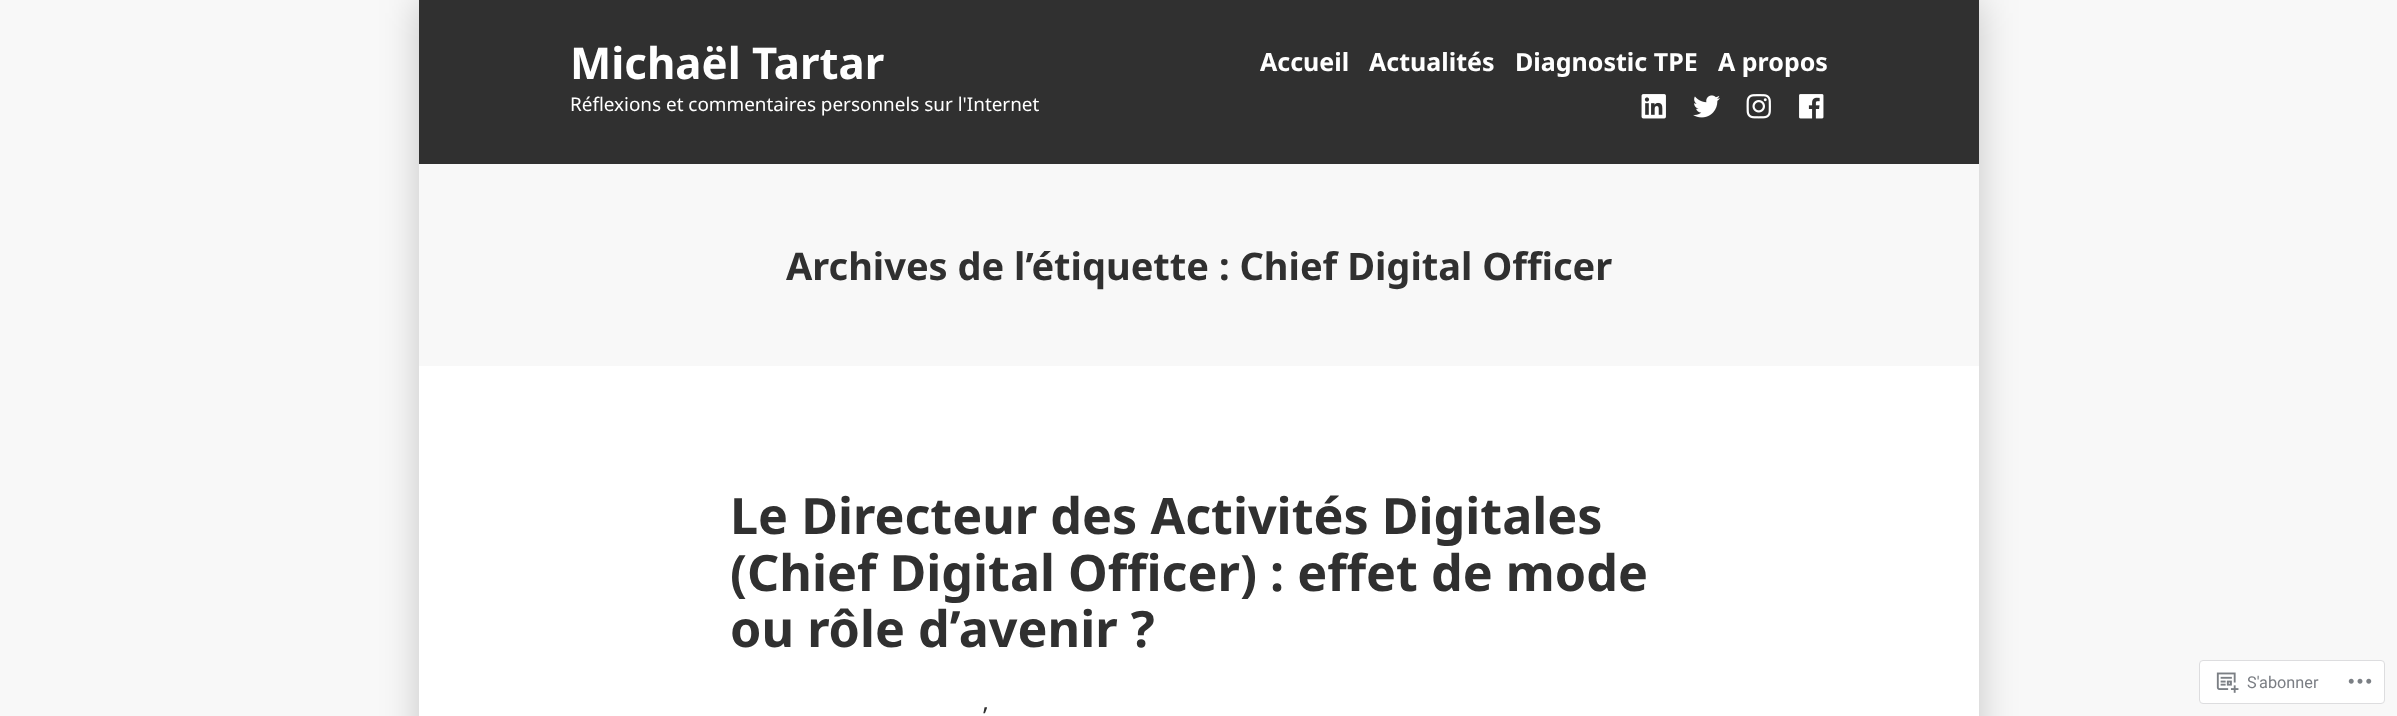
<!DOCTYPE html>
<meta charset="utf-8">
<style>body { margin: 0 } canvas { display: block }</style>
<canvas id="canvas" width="2397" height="716"></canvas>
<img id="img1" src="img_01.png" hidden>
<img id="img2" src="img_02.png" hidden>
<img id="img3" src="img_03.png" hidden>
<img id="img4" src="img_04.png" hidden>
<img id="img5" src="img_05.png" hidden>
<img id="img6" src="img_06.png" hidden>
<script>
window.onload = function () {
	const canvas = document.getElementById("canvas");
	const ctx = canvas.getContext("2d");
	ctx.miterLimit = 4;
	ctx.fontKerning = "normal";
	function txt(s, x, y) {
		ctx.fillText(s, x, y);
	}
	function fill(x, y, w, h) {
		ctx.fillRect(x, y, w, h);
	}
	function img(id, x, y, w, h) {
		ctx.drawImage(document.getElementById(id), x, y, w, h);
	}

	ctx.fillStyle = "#F8F8F8";
	fill(0, 0, 2397, 716);
	ctx.fillStyle = "rgba(0, 0, 0, 0.2)";
	ctx.filter = "blur(19px)";
	ctx.beginPath();
	ctx.rect(419, 0, 1560, 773);
	ctx.fill();
	ctx.filter = "none";
	ctx.fillStyle = "#FFFFFF";
	fill(419, 366, 1560, 350);
	ctx.fillStyle = "#303030";
	fill(419, 0, 1560, 164);
	img("img1", 1641, 94, 25, 25);
	img("img2", 1693, 95, 27, 23);
	img("img3", 1746, 94, 25, 25);
	img("img4", 1799, 94, 25, 25);
	ctx.fillStyle = "#F8F8F8";
	fill(419, 164, 1560, 202);
	ctx.fillStyle = "#FFFFFF";
	ctx.beginPath();
	ctx.roundRect(2199.5, 660.5, 185, 43, 3.5);
	ctx.fill();
	ctx.strokeStyle = "#DDDDDF";
	ctx.stroke();
	img("img5", 2216, 672, 23, 21);
	img("img6", 2348, 678, 24, 6);
	ctx.font = "bold 43.75px Noto Sans";
	txt("Michaël Tartar", 570, 79);
	ctx.font = "bold 25px Noto Sans";
	txt("Accueil", 1260, 71);
	txt("Actualités", 1369, 71);
	txt("Diagnostic TPE", 1515, 71);
	txt("A propos", 1718, 71);
	ctx.font = "18.9px Noto Sans";
	txt("Réflexions et commentaires personnels sur l'Internet", 570, 111);
	ctx.font = "bold 38px Noto Sans";
	ctx.fillStyle = "#303030";
	txt("Archives de l’étiquette : Chief Digital Officer", 786, 280);
	ctx.font = "bold 50.25px Noto Sans";
	txt("Le Directeur des Activités Digitales", 730, 534);
	txt("(Chief Digital Officer) : effet de mode", 730, 591);
	txt("ou rôle d’avenir ?", 730, 647);
	ctx.font = "25px Noto Sans";
	txt("’", 983, 725);
	ctx.font = "16.25px Roboto";
	ctx.fillStyle = "#7B7E84";
	txt("S'abonner", 2247, 688);
};
</script>
